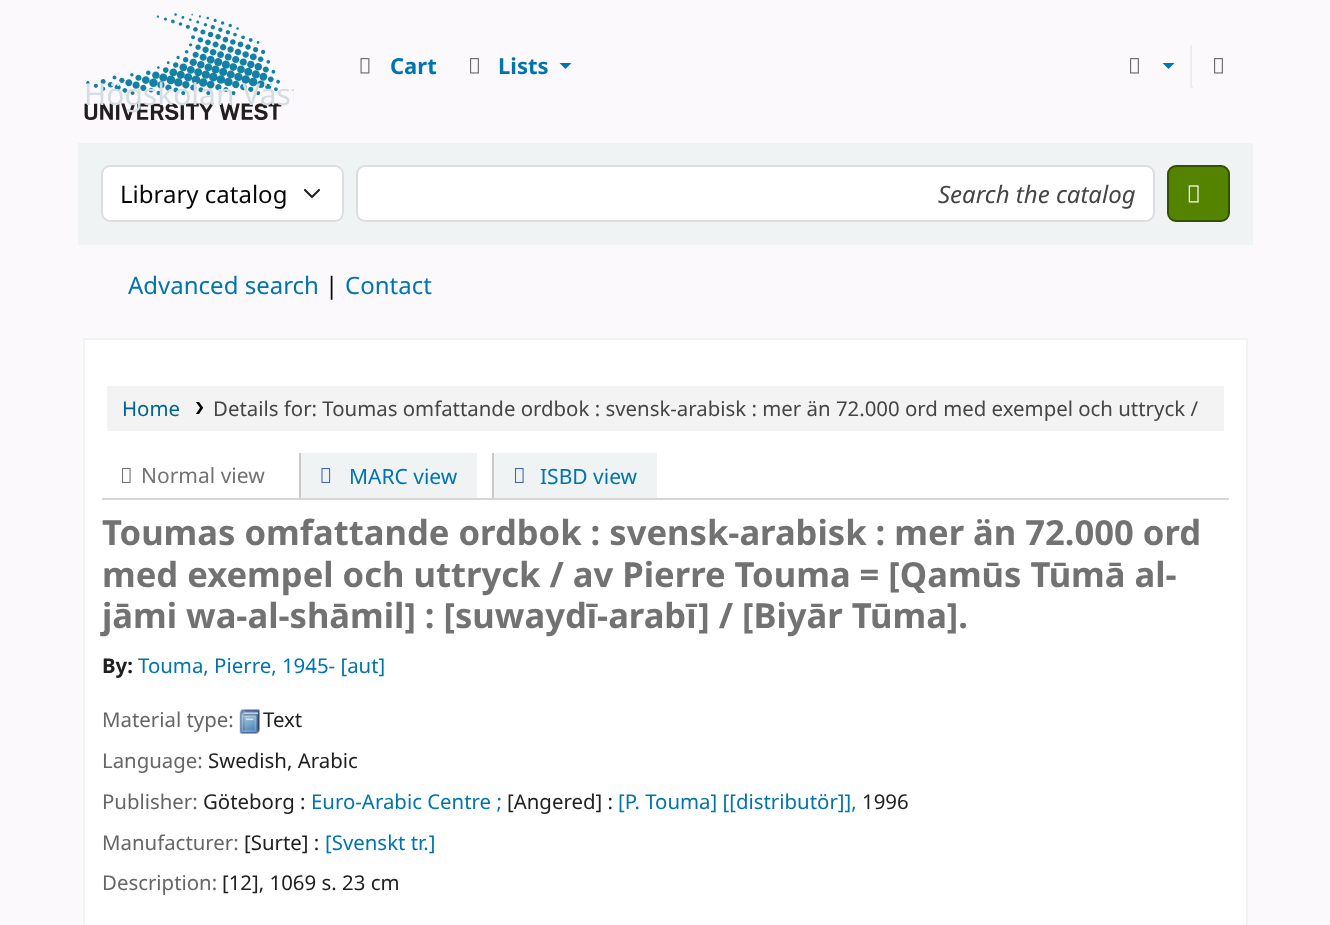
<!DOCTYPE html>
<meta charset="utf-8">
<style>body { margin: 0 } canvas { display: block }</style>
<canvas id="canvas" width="1330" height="925"></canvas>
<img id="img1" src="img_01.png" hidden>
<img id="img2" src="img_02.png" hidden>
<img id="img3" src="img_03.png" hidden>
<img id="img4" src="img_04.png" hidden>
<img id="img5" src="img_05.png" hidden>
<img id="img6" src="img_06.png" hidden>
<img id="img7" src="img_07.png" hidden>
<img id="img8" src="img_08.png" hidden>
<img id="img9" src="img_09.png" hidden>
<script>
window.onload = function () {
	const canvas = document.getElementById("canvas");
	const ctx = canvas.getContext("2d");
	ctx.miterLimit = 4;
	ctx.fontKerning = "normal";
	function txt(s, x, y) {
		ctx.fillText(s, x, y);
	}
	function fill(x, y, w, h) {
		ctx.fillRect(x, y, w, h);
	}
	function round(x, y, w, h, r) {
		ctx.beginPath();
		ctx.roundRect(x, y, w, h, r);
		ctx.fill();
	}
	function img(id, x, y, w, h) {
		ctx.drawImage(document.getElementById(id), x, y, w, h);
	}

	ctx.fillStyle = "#FCF9FC";
	fill(0, 0, 1330, 925);
	img("img1", 360, 58, 10, 16);
	img("img2", 470, 58, 9, 16);
	ctx.fillStyle = "#0074AD";
	ctx.beginPath();
	ctx.moveTo(559.5, 63);
	ctx.lineTo(571.5, 63);
	ctx.lineTo(565.5, 69);
	ctx.closePath();
	ctx.fill();
	img("img2", 1130, 58, 9, 16);
	ctx.beginPath();
	ctx.moveTo(1162.5, 63);
	ctx.lineTo(1174.5, 63);
	ctx.lineTo(1168.5, 69);
	ctx.closePath();
	ctx.fill();
	ctx.fillStyle = "#EEEEEE";
	fill(1190, 86, 3, 2);
	fill(1190, 45, 2, 42);
	img("img2", 1214, 58, 9, 16);
	img("img3", 84, 13, 198, 107);
	ctx.fillStyle = "#F0F3F3";
	fill(78, 143, 1175, 102);
	ctx.fillStyle = "#FFFFFF";
	round(101, 165, 243, 57, 9);
	ctx.beginPath();
	ctx.moveTo(305, 190);
	ctx.lineTo(312, 197);
	ctx.lineTo(319, 190);
	ctx.strokeStyle = "#252525";
	ctx.lineWidth = 2.2;
	ctx.lineCap = "round";
	ctx.lineJoin = "round";
	ctx.stroke();
	ctx.beginPath();
	ctx.roundRect(102, 166, 241, 55, 8);
	ctx.strokeStyle = "#DDDDDD";
	ctx.lineWidth = 2;
	ctx.lineJoin = "miter";
	ctx.stroke();
	ctx.beginPath();
	ctx.roundRect(357, 166, 797, 55, 8);
	ctx.fill();
	ctx.stroke();
	ctx.fillStyle = "#548300";
	ctx.beginPath();
	ctx.roundRect(1168, 166, 61, 55, 8);
	ctx.fill();
	ctx.strokeStyle = "#335000";
	ctx.stroke();
	img("img4", 1188, 185, 11, 18);
	ctx.fillStyle = "#FFFFFF";
	ctx.beginPath();
	ctx.rect(84, 339, 1163, 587);
	ctx.fill();
	ctx.strokeStyle = "#F0F3F3";
	ctx.stroke();
	ctx.fillStyle = "#F3F3F3";
	fill(107, 386, 1117, 45);
	img("img5", 196, 402, 8, 12);
	ctx.fillStyle = "#D6D6D6";
	fill(102, 498, 1127, 2);
	img("img6", 122, 468, 9, 15);
	ctx.fillStyle = "#F0F3F3";
	fill(301, 453, 176, 45);
	ctx.fillStyle = "#C9C9C9";
	fill(299, 453, 2, 45);
	img("img7", 321, 468, 10, 15);
	ctx.fillStyle = "#F0F3F3";
	fill(494, 453, 163, 45);
	ctx.fillStyle = "#C9C9C9";
	fill(492, 453, 2, 45);
	img("img8", 514, 468, 10, 15);
	img("img9", 239, 709, 21, 25);
	ctx.font = "bold 22px Noto Sans";
	ctx.fillStyle = "#0074AD";
	txt("Cart", 390, 74);
	txt("Lists", 498, 74);
	ctx.save();
	ctx.beginPath();
	ctx.rect(84, 12, 210, 108);
	ctx.clip();
	ctx.font = "30px Noto Sans";
	ctx.fillStyle = "#D4DDE3";
	txt("Högskolan Väst", 84, 105);
	ctx.restore();
	ctx.font = "24px Noto Sans";
	ctx.fillStyle = "#070707";
	txt("Library catalog", 120, 203);
	ctx.font = "italic 24px Noto Sans";
	ctx.fillStyle = "#454545";
	txt("Search the catalog", 938, 203);
	ctx.font = "24px Noto Sans";
	ctx.fillStyle = "#0074AD";
	txt("Advanced search", 128, 294);
	ctx.fillStyle = "#070707";
	txt("|", 325, 294);
	ctx.fillStyle = "#0074AD";
	txt("Contact", 345, 294);
	ctx.font = "20.4px Noto Sans";
	ctx.fillStyle = "#006394";
	txt("Home", 122, 416);
	ctx.fillStyle = "#454545";
	txt("Details for: Toumas omfattande ordbok : svensk-arabisk : mer än 72.000 ord med exempel och uttryck /", 213, 416);
	ctx.font = "21px Noto Sans";
	ctx.fillStyle = "#727272";
	txt("Normal view", 141, 483);
	ctx.fillStyle = "#0074AD";
	txt("MARC view", 349, 484);
	txt("ISBD view", 540, 484);
	ctx.font = "bold 34.6px Noto Sans";
	ctx.fillStyle = "#727272";
	txt("Toumas omfattande ordbok : svensk-arabisk : mer än 72.000 ord", 102, 545);
	txt("med exempel och uttryck / av Pierre Touma = [Qamūs Tūmā al-", 102, 587);
	txt("jāmi wa-al-shāmil] : [suwaydī-arabī] / [Biyār Tūma].", 102, 628);
	ctx.font = "bold 20.4px Noto Sans";
	ctx.fillStyle = "#202020";
	txt("By:", 102, 673);
	ctx.font = "20.4px Noto Sans";
	ctx.fillStyle = "#0074AD";
	txt("Touma, Pierre, 1945- [aut]", 138, 673);
	ctx.fillStyle = "#666666";
	txt("Material type:", 102, 727);
	ctx.fillStyle = "#202020";
	txt("Text", 263, 727);
	ctx.fillStyle = "#666666";
	txt("Language:", 102, 768);
	ctx.fillStyle = "#202020";
	txt("Swedish, Arabic", 208, 768);
	ctx.fillStyle = "#666666";
	txt("Publisher:", 102, 809);
	ctx.fillStyle = "#202020";
	txt("Göteborg :", 203, 809);
	ctx.fillStyle = "#0074AD";
	txt("Euro-Arabic Centre ;", 311, 809);
	ctx.fillStyle = "#202020";
	txt("[Angered] :", 507, 809);
	ctx.fillStyle = "#0074AD";
	txt("[P. Touma] [[distributör]],", 618, 809);
	ctx.fillStyle = "#202020";
	txt("1996", 862, 809);
	ctx.fillStyle = "#666666";
	txt("Manufacturer:", 102, 850);
	ctx.fillStyle = "#202020";
	txt("[Surte] :", 244, 850);
	ctx.fillStyle = "#0074AD";
	txt("[Svenskt tr.]", 325, 850);
	ctx.fillStyle = "#666666";
	txt("Description:", 102, 890);
	ctx.fillStyle = "#202020";
	txt("[12], 1069 s. 23 cm", 222, 890);
};
</script>
